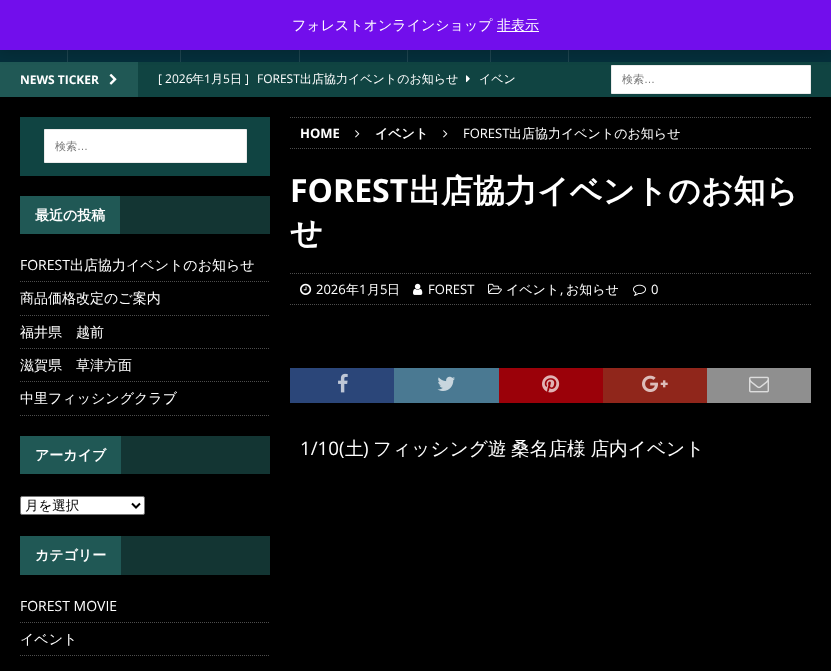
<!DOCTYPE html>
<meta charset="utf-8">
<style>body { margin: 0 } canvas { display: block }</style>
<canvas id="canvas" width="831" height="671"></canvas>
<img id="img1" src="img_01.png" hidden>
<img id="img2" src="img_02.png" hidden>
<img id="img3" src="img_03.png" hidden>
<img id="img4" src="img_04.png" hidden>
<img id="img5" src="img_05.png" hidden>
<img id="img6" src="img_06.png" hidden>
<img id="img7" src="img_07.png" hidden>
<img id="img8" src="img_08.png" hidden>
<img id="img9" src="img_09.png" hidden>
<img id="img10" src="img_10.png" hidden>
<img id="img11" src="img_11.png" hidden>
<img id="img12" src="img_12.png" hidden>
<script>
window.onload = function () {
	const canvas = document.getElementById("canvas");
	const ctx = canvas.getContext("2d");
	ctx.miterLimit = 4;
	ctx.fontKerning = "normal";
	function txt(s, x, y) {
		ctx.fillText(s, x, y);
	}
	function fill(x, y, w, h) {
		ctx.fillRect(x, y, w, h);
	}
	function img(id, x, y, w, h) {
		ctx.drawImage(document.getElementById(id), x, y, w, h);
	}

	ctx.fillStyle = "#052F3B";
	fill(0, 0, 831, 671);
	ctx.fillStyle = "#1E444F";
	fill(67, 50, 1, 12);
	fill(180, 50, 1, 12);
	fill(299, 50, 1, 12);
	fill(407, 50, 1, 12);
	fill(490, 50, 1, 12);
	fill(568, 50, 1, 12);
	ctx.fillStyle = "#104442";
	fill(138, 62, 693, 35);
	ctx.fillStyle = "#205855";
	fill(0, 62, 138, 35);
	ctx.fillStyle = "#FFFFFF";
	ctx.beginPath();
	ctx.rect(611.5, 65.5, 199, 28);
	ctx.fill();
	ctx.strokeStyle = "#EBEBEB";
	ctx.stroke();
	ctx.fillStyle = "rgba(0, 0, 0, 0.2)";
	ctx.filter = "blur(7px)";
	ctx.beginPath();
	ctx.rect(0, 1, 831, 50);
	ctx.fill();
	ctx.filter = "none";
	ctx.fillStyle = "#720EEC";
	fill(0, 0, 831, 50);
	ctx.fillStyle = "#FCFBFE";
	fill(497, 31, 42, 1);
	img("img1", 109, 73, 8, 12);
	img("img2", 466, 75, 4, 8);
	ctx.fillStyle = "#000000";
	fill(0, 97, 831, 574);
	ctx.fillStyle = "#104442";
	fill(20, 117, 250, 59);
	ctx.fillStyle = "#FFFFFF";
	ctx.beginPath();
	ctx.rect(44.5, 129.5, 202, 33);
	ctx.fill();
	ctx.stroke();
	ctx.fillStyle = "#133533";
	fill(120, 196, 150, 38);
	ctx.fillStyle = "#205855";
	fill(20, 196, 100, 38);
	ctx.beginPath();
	ctx.moveTo(20, 281.5);
	ctx.lineTo(270, 281.5);
	ctx.strokeStyle = "#4D4D4D";
	ctx.setLineDash([1, 1]);
	ctx.stroke();
	ctx.beginPath();
	ctx.moveTo(20, 315.5);
	ctx.lineTo(270, 315.5);
	ctx.stroke();
	ctx.beginPath();
	ctx.moveTo(20, 348.5);
	ctx.lineTo(270, 348.5);
	ctx.stroke();
	ctx.beginPath();
	ctx.moveTo(20, 381.5);
	ctx.lineTo(270, 381.5);
	ctx.stroke();
	ctx.beginPath();
	ctx.moveTo(20, 415.5);
	ctx.lineTo(270, 415.5);
	ctx.stroke();
	ctx.fillStyle = "#133533";
	fill(121, 436, 149, 38);
	ctx.fillStyle = "#205855";
	fill(20, 436, 101, 38);
	ctx.fillStyle = "#FFFFFF";
	ctx.beginPath();
	ctx.roundRect(20.5, 496.5, 124, 18, 1.5);
	ctx.fill();
	ctx.strokeStyle = "#767676";
	ctx.setLineDash([]);
	ctx.stroke();
	ctx.beginPath();
	ctx.moveTo(132, 503.5);
	ctx.lineTo(136, 507.5);
	ctx.lineTo(140, 503.5);
	ctx.strokeStyle = "#000000";
	ctx.lineWidth = 2;
	ctx.stroke();
	ctx.fillStyle = "#133533";
	fill(121, 536, 149, 39);
	ctx.fillStyle = "#205855";
	fill(20, 536, 101, 39);
	ctx.beginPath();
	ctx.moveTo(20, 622.5);
	ctx.lineTo(270, 622.5);
	ctx.strokeStyle = "#4D4D4D";
	ctx.lineWidth = 1;
	ctx.setLineDash([1, 1]);
	ctx.stroke();
	ctx.beginPath();
	ctx.moveTo(20, 655.5);
	ctx.lineTo(270, 655.5);
	ctx.stroke();
	ctx.beginPath();
	ctx.moveTo(290, 117.5);
	ctx.lineTo(811, 117.5);
	ctx.stroke();
	ctx.beginPath();
	ctx.moveTo(290, 148.5);
	ctx.lineTo(811, 148.5);
	ctx.stroke();
	img("img3", 355, 130, 5, 8);
	img("img3", 443, 130, 5, 8);
	ctx.beginPath();
	ctx.moveTo(290, 273.5);
	ctx.lineTo(811, 273.5);
	ctx.stroke();
	ctx.beginPath();
	ctx.moveTo(290, 304.5);
	ctx.lineTo(811, 304.5);
	ctx.stroke();
	img("img4", 300, 283, 12, 12);
	img("img5", 413, 283, 10, 12);
	img("img6", 488, 283, 14, 11);
	img("img7", 633, 284, 13, 12);
	ctx.fillStyle = "#2B4679";
	fill(290, 368, 104, 35);
	img("img8", 338, 373, 10, 20);
	ctx.fillStyle = "#4A7992";
	fill(394, 368, 105, 35);
	img("img9", 437, 376, 18, 15);
	ctx.fillStyle = "#9B0109";
	fill(499, 368, 104, 35);
	img("img10", 542, 375, 18, 18);
	ctx.fillStyle = "#90261B";
	fill(603, 368, 104, 35);
	img("img11", 642, 375, 26, 17);
	ctx.fillStyle = "#8F8F8F";
	fill(707, 368, 104, 35);
	img("img12", 749, 376, 20, 17);
	ctx.font = "500 14px WenQuanYi Zen Hei";
	ctx.fillStyle = "#FFFFFF";
	txt("フォレストオンラインショップ", 292, 30);
	txt("非表示", 497, 30);
	ctx.font = "bold 12px Open Sans";
	txt("NEWS TICKER", 20, 84);
	ctx.font = "12px Open Sans";
	txt("[ 2026", 158, 83);
	ctx.font = "500 12px WenQuanYi Zen Hei";
	txt("年", 192, 83);
	ctx.font = "12px Open Sans";
	txt("1", 204, 83);
	ctx.font = "500 12px WenQuanYi Zen Hei";
	txt("月", 211, 83);
	ctx.font = "12px Open Sans";
	txt("5", 223, 83);
	ctx.font = "500 12px WenQuanYi Zen Hei";
	txt("日", 230, 83);
	ctx.font = "12px Open Sans";
	txt("]", 245, 83);
	txt("FOREST", 257, 83);
	ctx.font = "500 12px WenQuanYi Zen Hei";
	txt("出店協力イベントのお知らせ", 300, 83);
	txt("イベン", 479, 83);
	ctx.font = "500 11px WenQuanYi Zen Hei";
	ctx.fillStyle = "#757575";
	txt("検索", 622, 83);
	ctx.font = "11px Liberation Sans";
	txt("…", 644, 83);
	ctx.font = "500 11px WenQuanYi Zen Hei";
	txt("検索", 55, 150);
	ctx.font = "11px Liberation Sans";
	txt("…", 77, 150);
	ctx.font = "bold 14px WenQuanYi Zen Hei";
	ctx.fillStyle = "#FFFFFF";
	txt("最近の投稿", 35, 220);
	ctx.font = "14px Open Sans";
	txt("FOREST", 20, 270);
	ctx.font = "500 14px WenQuanYi Zen Hei";
	txt("出店協力イベントのお知らせ", 70, 270);
	txt("商品価格改定のご案内", 20, 303);
	txt("福井県　越前", 20, 337);
	txt("滋賀県　草津方面", 20, 370);
	txt("中里フィッシングクラブ", 20, 403);
	ctx.font = "bold 14px WenQuanYi Zen Hei";
	txt("アーカイブ", 35, 460);
	ctx.font = "500 13.5px WenQuanYi Zen Hei";
	ctx.fillStyle = "#000000";
	txt("月を選択", 25, 510);
	ctx.font = "bold 14px WenQuanYi Zen Hei";
	ctx.fillStyle = "#FFFFFF";
	txt("カテゴリー", 35, 560);
	ctx.font = "14px Open Sans";
	txt("FOREST MOVIE", 20, 611);
	ctx.font = "500 14px WenQuanYi Zen Hei";
	txt("イベント", 20, 644);
	ctx.font = "bold 13px Open Sans";
	txt("HOME", 300, 138);
	ctx.font = "bold 13px WenQuanYi Zen Hei";
	txt("イベント", 375, 138);
	ctx.font = "13px Open Sans";
	txt("FOREST", 463, 138);
	ctx.font = "500 13px WenQuanYi Zen Hei";
	txt("出店協力イベントのお知らせ", 509, 138);
	ctx.font = "bold 32px Open Sans";
	txt("FOREST", 290, 202);
	ctx.font = "bold 32px WenQuanYi Zen Hei";
	txt("出店協力イベントのお知ら", 409, 202);
	txt("せ", 290, 244);
	ctx.font = "13px Open Sans";
	txt("2026", 316, 294);
	ctx.font = "500 13px WenQuanYi Zen Hei";
	txt("年", 346, 294);
	ctx.font = "13px Open Sans";
	txt("1", 359, 294);
	ctx.font = "500 13px WenQuanYi Zen Hei";
	txt("月", 367, 294);
	ctx.font = "13px Open Sans";
	txt("5", 380, 294);
	ctx.font = "500 13px WenQuanYi Zen Hei";
	txt("日", 387, 294);
	ctx.font = "13px Open Sans";
	txt("FOREST", 428, 294);
	ctx.font = "500 13px WenQuanYi Zen Hei";
	txt("イベント", 506, 294);
	ctx.font = "13px Open Sans";
	txt(",", 560, 294);
	ctx.font = "500 13px WenQuanYi Zen Hei";
	txt("お知らせ", 566, 294);
	ctx.font = "13px Open Sans";
	txt("0", 651, 294);
	ctx.font = "18.7px Open Sans";
	txt("1/10(", 300, 455);
	ctx.font = "500 18.7px WenQuanYi Zen Hei";
	txt("土", 345, 455);
	ctx.font = "18.7px Open Sans";
	txt(")", 363, 455);
	ctx.wordSpacing = "-1px";
	ctx.font = "500 18.7px WenQuanYi Zen Hei";
	txt("フィッシング遊 桑名店様 店内イベント", 373, 455);
};
</script>
